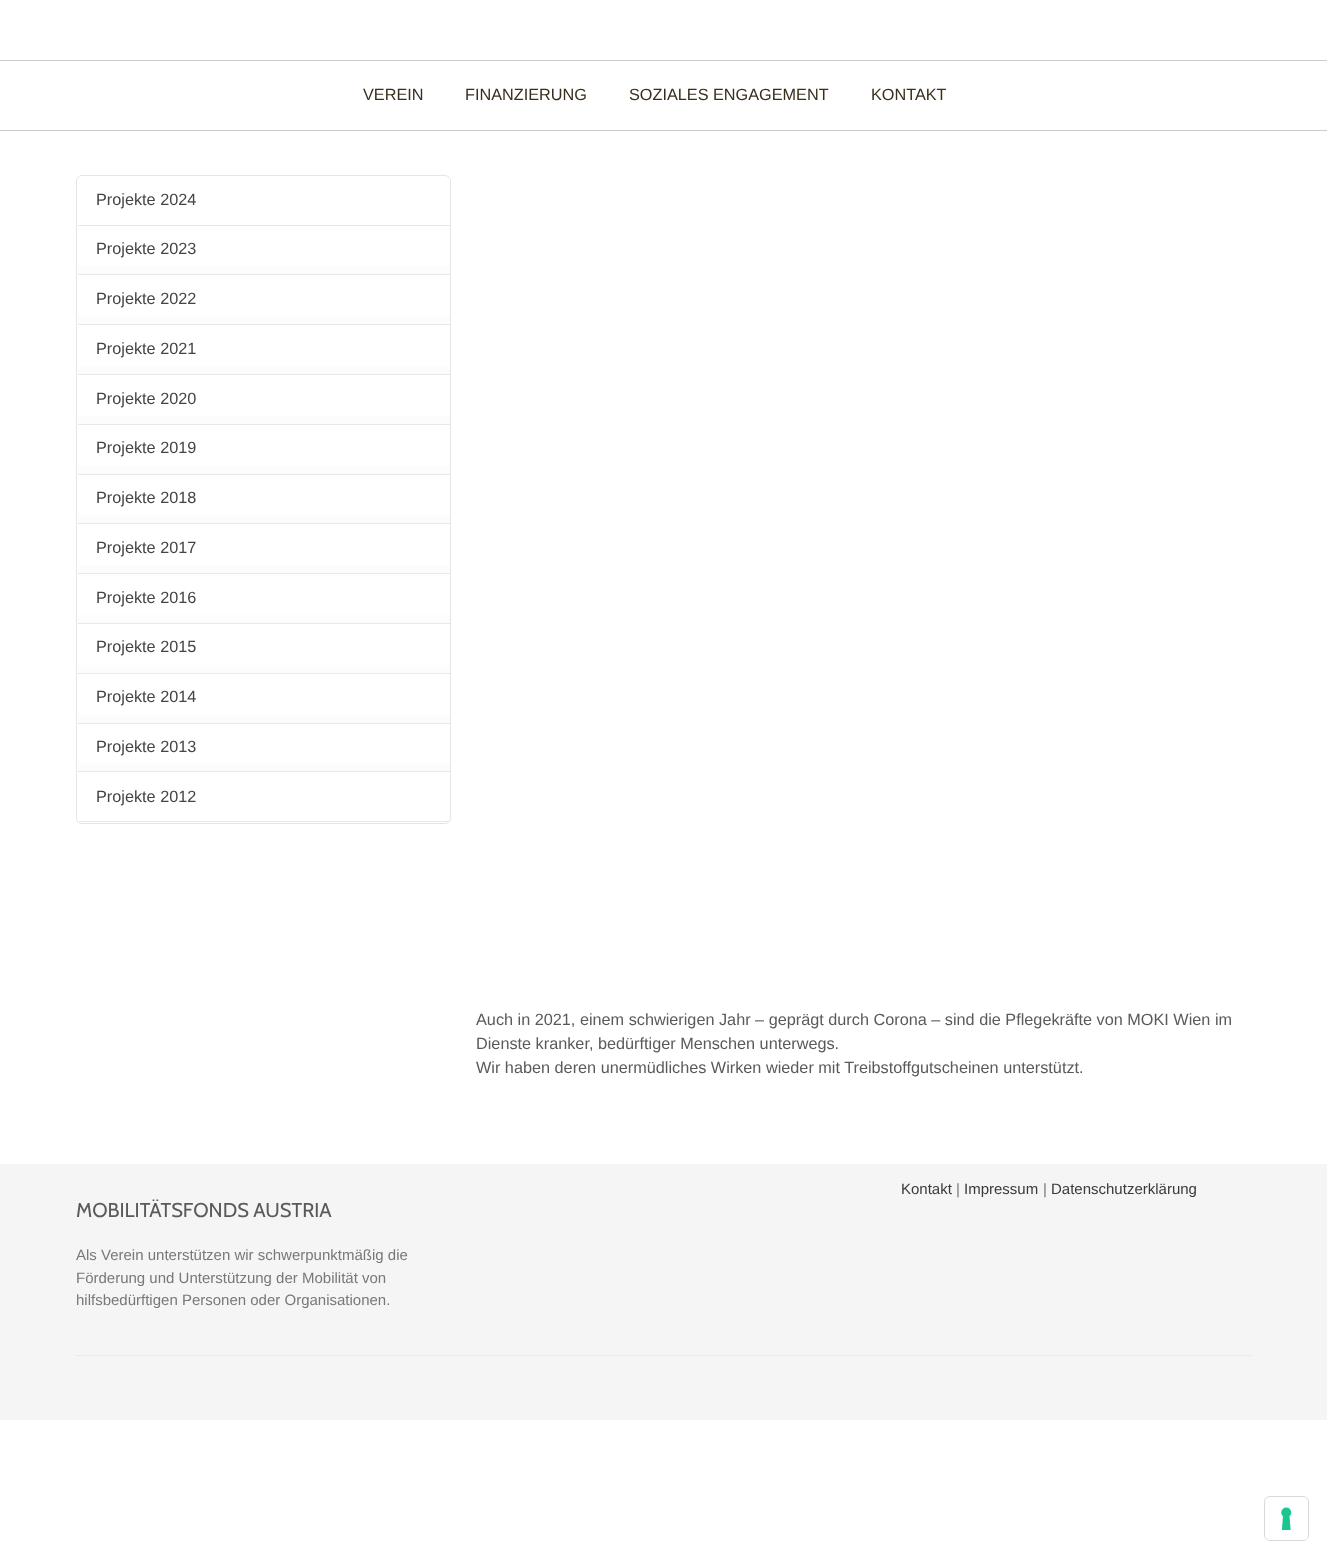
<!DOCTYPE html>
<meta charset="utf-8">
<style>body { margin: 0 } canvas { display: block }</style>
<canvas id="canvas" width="1327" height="1560"></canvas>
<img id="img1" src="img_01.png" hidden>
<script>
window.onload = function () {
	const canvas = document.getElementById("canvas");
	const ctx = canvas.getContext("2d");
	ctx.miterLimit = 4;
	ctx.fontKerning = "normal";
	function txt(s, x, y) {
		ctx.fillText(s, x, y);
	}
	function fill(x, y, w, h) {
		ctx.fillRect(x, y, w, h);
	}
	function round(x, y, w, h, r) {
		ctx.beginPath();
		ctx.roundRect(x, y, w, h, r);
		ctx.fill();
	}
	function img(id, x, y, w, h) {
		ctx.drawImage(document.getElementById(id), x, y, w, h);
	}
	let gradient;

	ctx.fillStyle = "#FFFFFF";
	fill(0, 0, 1327, 1560);
	ctx.fillStyle = "#CCCCCC";
	fill(0, 60, 1327, 1);
	fill(0, 130, 1327, 1);
	ctx.beginPath();
	ctx.roundRect(76.5, 175.5, 374, 648, 5.5);
	ctx.strokeStyle = "rgba(0, 0, 0, 0.1)";
	ctx.stroke();
	ctx.fillStyle = "#E8E8E8";
	fill(78, 225, 372, 1);
	gradient = ctx.createLinearGradient(264, 226, 264, 274);
	gradient.addColorStop(0, "#FFFFFF");
	gradient.addColorStop(1, "#FCFCFC");
	ctx.fillStyle = gradient;
	fill(78, 266, 372, 8);
	ctx.fillStyle = "#E8E8E8";
	fill(78, 274, 372, 1);
	gradient = ctx.createLinearGradient(264, 275, 264, 324);
	gradient.addColorStop(0, "#FFFFFF");
	gradient.addColorStop(1, "#FCFCFC");
	ctx.fillStyle = gradient;
	fill(78, 316, 372, 8);
	ctx.fillStyle = "#E8E8E8";
	fill(78, 324, 372, 1);
	gradient = ctx.createLinearGradient(264, 325, 264, 374);
	gradient.addColorStop(0, "#FFFFFF");
	gradient.addColorStop(1, "#FCFCFC");
	ctx.fillStyle = gradient;
	fill(78, 366, 372, 8);
	ctx.fillStyle = "#E8E8E8";
	fill(78, 374, 372, 1);
	gradient = ctx.createLinearGradient(264, 375, 264, 424);
	gradient.addColorStop(0, "#FFFFFF");
	gradient.addColorStop(1, "#FCFCFC");
	ctx.fillStyle = gradient;
	fill(78, 416, 372, 8);
	ctx.fillStyle = "#E8E8E8";
	fill(78, 424, 372, 1);
	gradient = ctx.createLinearGradient(264, 425, 264, 474);
	gradient.addColorStop(0, "#FFFFFF");
	gradient.addColorStop(1, "#FCFCFC");
	ctx.fillStyle = gradient;
	fill(78, 466, 372, 8);
	ctx.fillStyle = "#E8E8E8";
	fill(78, 474, 372, 1);
	gradient = ctx.createLinearGradient(264, 475, 264, 523);
	gradient.addColorStop(0, "#FFFFFF");
	gradient.addColorStop(1, "#FCFCFC");
	ctx.fillStyle = gradient;
	fill(78, 515, 372, 8);
	ctx.fillStyle = "#E8E8E8";
	fill(78, 523, 372, 1);
	gradient = ctx.createLinearGradient(264, 524, 264, 573);
	gradient.addColorStop(0, "#FFFFFF");
	gradient.addColorStop(1, "#FCFCFC");
	ctx.fillStyle = gradient;
	fill(78, 565, 372, 8);
	ctx.fillStyle = "#E8E8E8";
	fill(78, 573, 372, 1);
	gradient = ctx.createLinearGradient(264, 574, 264, 623);
	gradient.addColorStop(0, "#FFFFFF");
	gradient.addColorStop(1, "#FCFCFC");
	ctx.fillStyle = gradient;
	fill(78, 615, 372, 8);
	ctx.fillStyle = "#E8E8E8";
	fill(78, 623, 372, 1);
	gradient = ctx.createLinearGradient(264, 624, 264, 673);
	gradient.addColorStop(0, "#FFFFFF");
	gradient.addColorStop(1, "#FCFCFC");
	ctx.fillStyle = gradient;
	fill(78, 665, 372, 8);
	ctx.fillStyle = "#E8E8E8";
	fill(78, 673, 372, 1);
	gradient = ctx.createLinearGradient(264, 674, 264, 723);
	gradient.addColorStop(0, "#FFFFFF");
	gradient.addColorStop(1, "#FCFCFC");
	ctx.fillStyle = gradient;
	fill(78, 715, 372, 8);
	ctx.fillStyle = "#E8E8E8";
	fill(78, 723, 372, 1);
	gradient = ctx.createLinearGradient(264, 724, 264, 771);
	gradient.addColorStop(0, "#FFFFFF");
	gradient.addColorStop(1, "#FCFCFC");
	ctx.fillStyle = gradient;
	fill(78, 763, 372, 8);
	ctx.fillStyle = "#E8E8E8";
	fill(78, 771, 372, 1);
	ctx.save();
	ctx.beginPath();
	ctx.roundRect(78, 176, 372, 647, 5);
	ctx.clip();
	fill(78, 821, 372, 1);
	ctx.restore();
	ctx.fillStyle = "#F5F5F5";
	fill(0, 1164, 1327, 256);
	ctx.fillStyle = "#E9E9E9";
	fill(76, 1355, 1175, 1);
	ctx.beginPath();
	ctx.roundRect(1264.5, 1496.5, 44, 44, 5.5);
	ctx.strokeStyle = "#D9D9D9";
	ctx.stroke();
	ctx.fillStyle = "#FFFFFF";
	round(1265, 1498, 43, 42, 5);
	img("img1", 1281, 1507, 11, 23);
	ctx.font = "16.25px Liberation Sans";
	ctx.fillStyle = "#392E1C";
	txt("VEREIN", 363, 100);
	txt("FINANZIERUNG", 465, 100);
	txt("SOZIALES ENGAGEMENT", 629, 100);
	txt("KONTAKT", 871, 100);
	ctx.fillStyle = "#444444";
	txt("Projekte 2024", 96, 205);
	txt("Projekte 2023", 96, 254);
	txt("Projekte 2022", 96, 304);
	txt("Projekte 2021", 96, 354);
	txt("Projekte 2020", 96, 404);
	txt("Projekte 2019", 96, 453);
	txt("Projekte 2018", 96, 503);
	txt("Projekte 2017", 96, 553);
	txt("Projekte 2016", 96, 603);
	txt("Projekte 2015", 96, 652);
	txt("Projekte 2014", 96, 702);
	txt("Projekte 2013", 96, 752);
	txt("Projekte 2012", 96, 802);
	ctx.fillStyle = "#5A5A5A";
	txt("Auch in 2021, einem schwierigen Jahr – geprägt durch Corona – sind die Pflegekräfte von MOKI Wien im", 476, 1025);
	txt("Dienste kranker, bedürftiger Menschen unterwegs.", 476, 1049);
	txt("Wir haben deren unermüdliches Wirken wieder mit Treibstoffgutscheinen unterstützt.", 476, 1073);
	ctx.font = "15px Liberation Sans";
	ctx.fillStyle = "#3A3A3A";
	txt("Kontakt", 901, 1194);
	ctx.fillStyle = "#787878";
	txt("|", 956, 1194);
	ctx.fillStyle = "#3A3A3A";
	txt("Impressum", 964, 1194);
	ctx.fillStyle = "#787878";
	txt("|", 1043, 1194);
	ctx.fillStyle = "#3A3A3A";
	txt("Datenschutzerklärung", 1051, 1194);
	ctx.font = "20px Cabin";
	ctx.fillStyle = "#5A5A5A";
	txt("MOBILITÄTSFONDS AUSTRIA", 76, 1217);
	ctx.font = "15px Liberation Sans";
	ctx.fillStyle = "#787878";
	txt("Als Verein unterstützen wir schwerpunktmäßig die", 76, 1260);
	txt("Förderung und Unterstützung der Mobilität von", 76, 1283);
	txt("hilfsbedürftigen Personen oder Organisationen.", 76, 1305);
};
</script>
